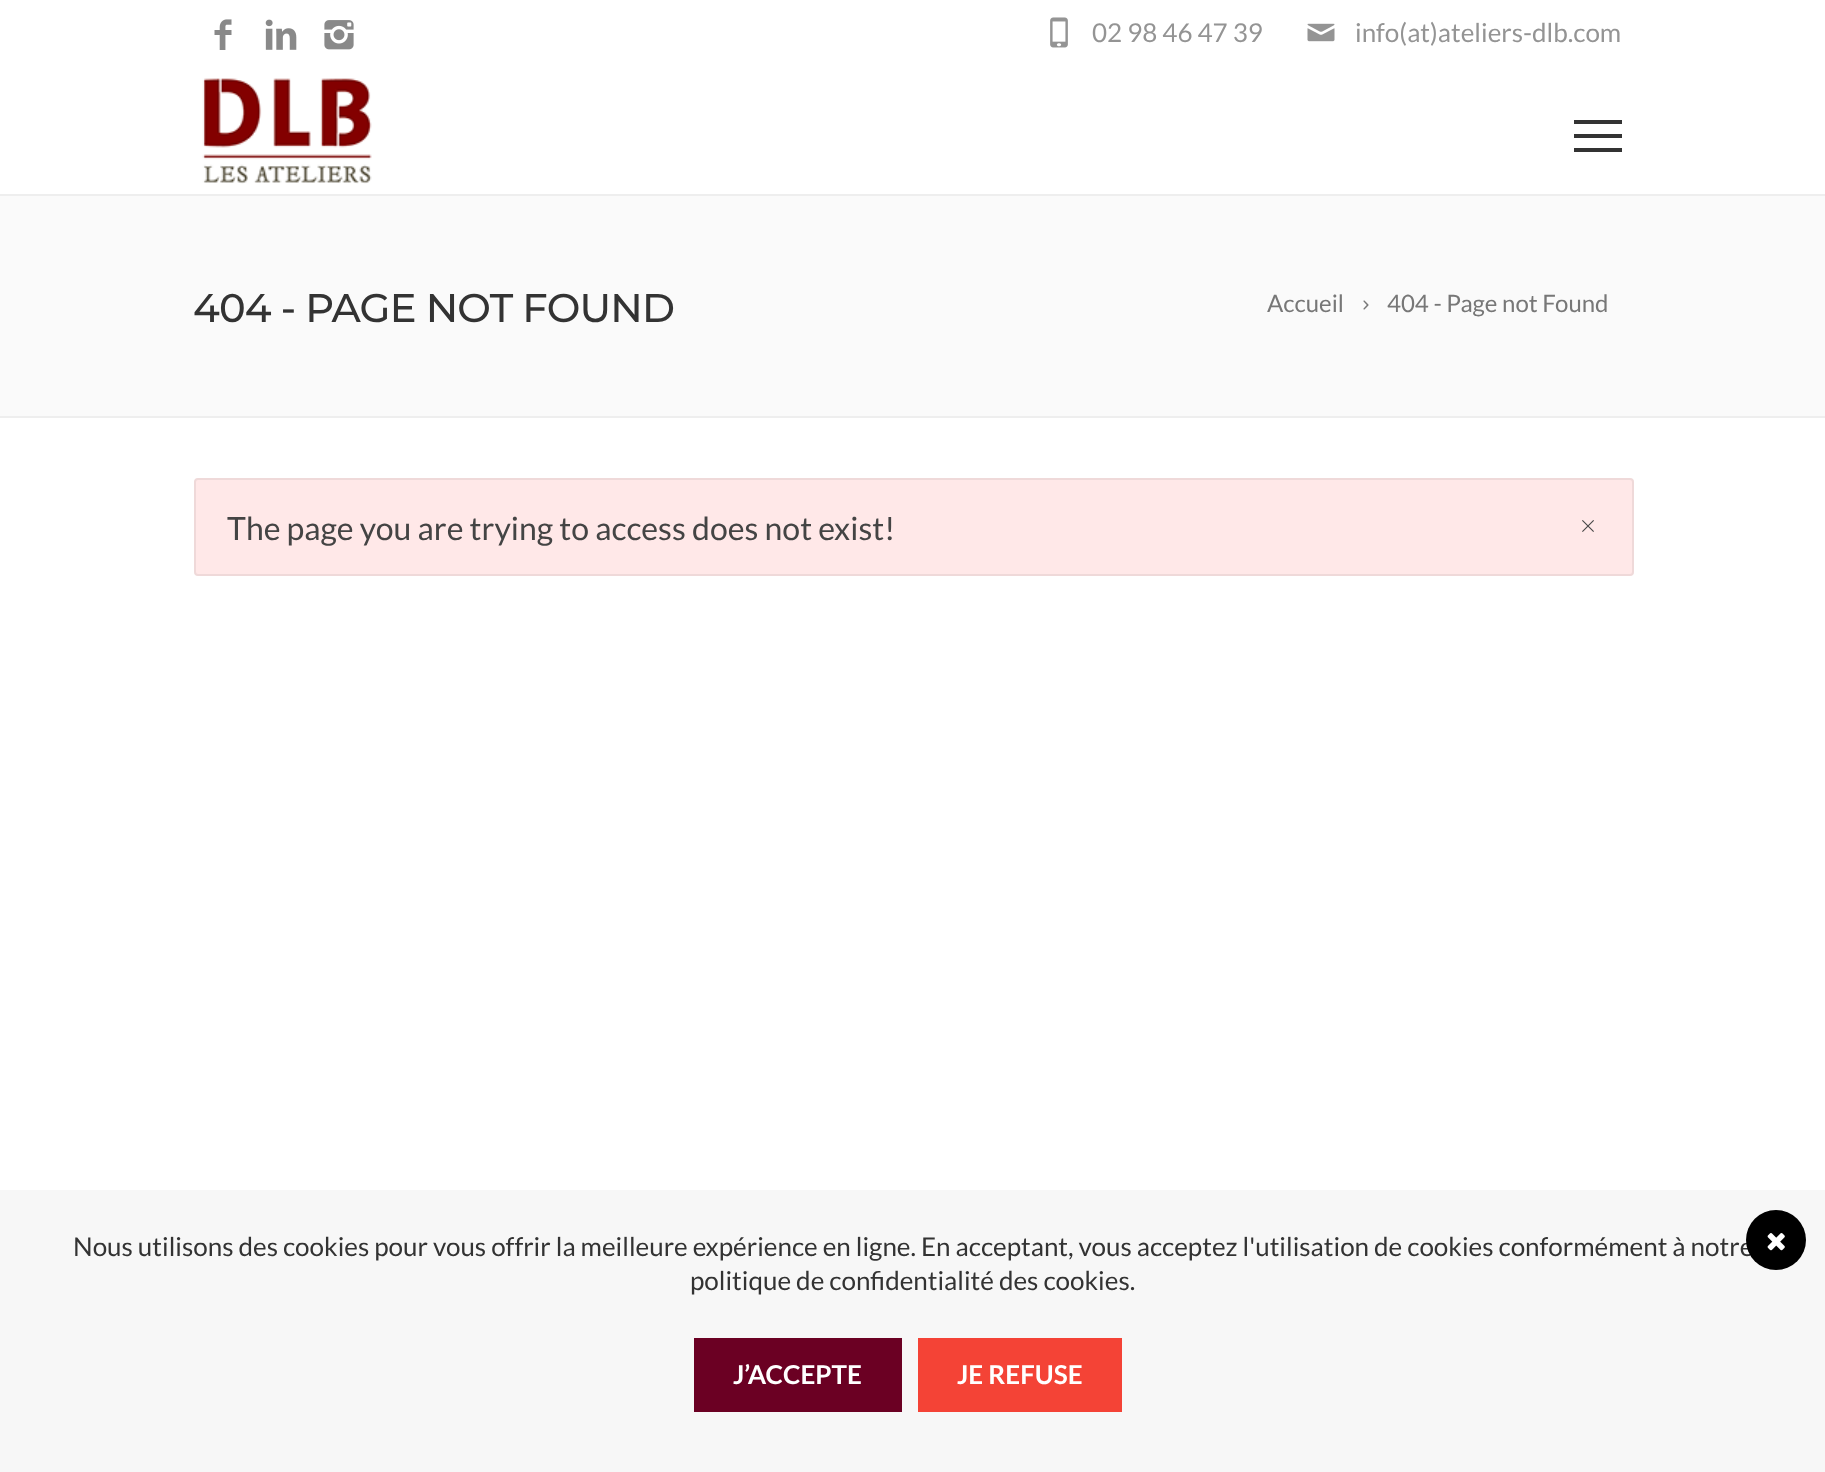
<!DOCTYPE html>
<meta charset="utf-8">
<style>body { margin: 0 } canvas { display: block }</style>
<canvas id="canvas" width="1825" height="1472"></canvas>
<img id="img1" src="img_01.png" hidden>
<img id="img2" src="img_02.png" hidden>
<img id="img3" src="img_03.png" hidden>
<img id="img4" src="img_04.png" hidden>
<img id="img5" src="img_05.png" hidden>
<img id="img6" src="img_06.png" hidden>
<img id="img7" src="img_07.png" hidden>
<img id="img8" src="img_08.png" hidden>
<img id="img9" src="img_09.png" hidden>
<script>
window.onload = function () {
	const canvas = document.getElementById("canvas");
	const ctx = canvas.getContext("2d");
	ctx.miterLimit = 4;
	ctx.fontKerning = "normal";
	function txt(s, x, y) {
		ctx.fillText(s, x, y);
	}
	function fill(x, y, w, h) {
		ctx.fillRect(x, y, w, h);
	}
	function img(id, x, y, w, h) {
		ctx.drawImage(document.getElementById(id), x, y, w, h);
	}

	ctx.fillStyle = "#FFFFFF";
	fill(0, 0, 1825, 1472);
	ctx.strokeStyle = "#EEEEEE";
	ctx.lineWidth = 2;
	ctx.strokeRect(-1, -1, 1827, 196);
	img("img1", 214, 19, 18, 31);
	img("img2", 265, 19, 32, 31);
	img("img3", 324, 20, 30, 30);
	img("img4", 1050, 17, 18, 31);
	img("img5", 1307, 23, 28, 19);
	img("img6", 202, 78, 170, 106);
	ctx.fillStyle = "#333333";
	fill(1574, 120, 48, 4);
	fill(1574, 134, 48, 4);
	fill(1574, 148, 48, 4);
	ctx.fillStyle = "#FAFAFA";
	fill(0, 196, 1825, 220);
	ctx.fillStyle = "#EEEEEE";
	fill(0, 416, 1825, 2);
	img("img7", 1363, 300, 6, 10);
	ctx.fillStyle = "#FFE8E8";
	ctx.beginPath();
	ctx.roundRect(195, 479, 1438, 96, 3);
	ctx.fill();
	ctx.strokeStyle = "#EFD9D9";
	ctx.stroke();
	img("img8", 1582, 520, 12, 12);
	ctx.fillStyle = "#F7F7F7";
	fill(0, 1190, 1825, 282);
	ctx.fillStyle = "#6B0023";
	fill(694, 1338, 208, 74);
	ctx.fillStyle = "#F44336";
	fill(918, 1338, 204, 74);
	ctx.font = "26px Lato";
	ctx.fillStyle = "#949494";
	txt("02 98 46 47 39", 1092, 42);
	txt("info(at)ateliers-dlb.com", 1355, 42);
	ctx.letterSpacing = "-0.8px";
	ctx.font = "500 40px Montserrat";
	ctx.fillStyle = "#333333";
	txt("404 - PAGE NOT FOUND", 193, 322);
	ctx.letterSpacing = "0px";
	ctx.font = "24px Lato";
	ctx.fillStyle = "#777777";
	txt("Accueil", 1267, 312);
	txt("404 - Page not Found", 1387, 312);
	ctx.font = "32px Lato";
	ctx.fillStyle = "#444444";
	txt("The page you are trying to access does not exist!", 227, 540);
	ctx.font = "26px Lato";
	ctx.fillStyle = "#333333";
	txt("Nous utilisons des cookies pour vous offrir la meilleure expérience en ligne. En acceptant, vous acceptez l'utilisation de cookies conformément à notre", 73, 1256);
	txt("politique de confidentialité des cookies.", 690, 1290);
	ctx.fillStyle = "#000000";
	ctx.beginPath();
	ctx.arc(1776, 1240, 30, 0, Math.PI * 2);
	ctx.fill();
	img("img9", 1767, 1233, 18, 18);
	ctx.font = "bold 26px Lato";
	ctx.fillStyle = "#FFFFFF";
	txt("J’ACCEPTE", 733, 1384);
	txt("JE REFUSE", 957, 1384);
};
</script>
